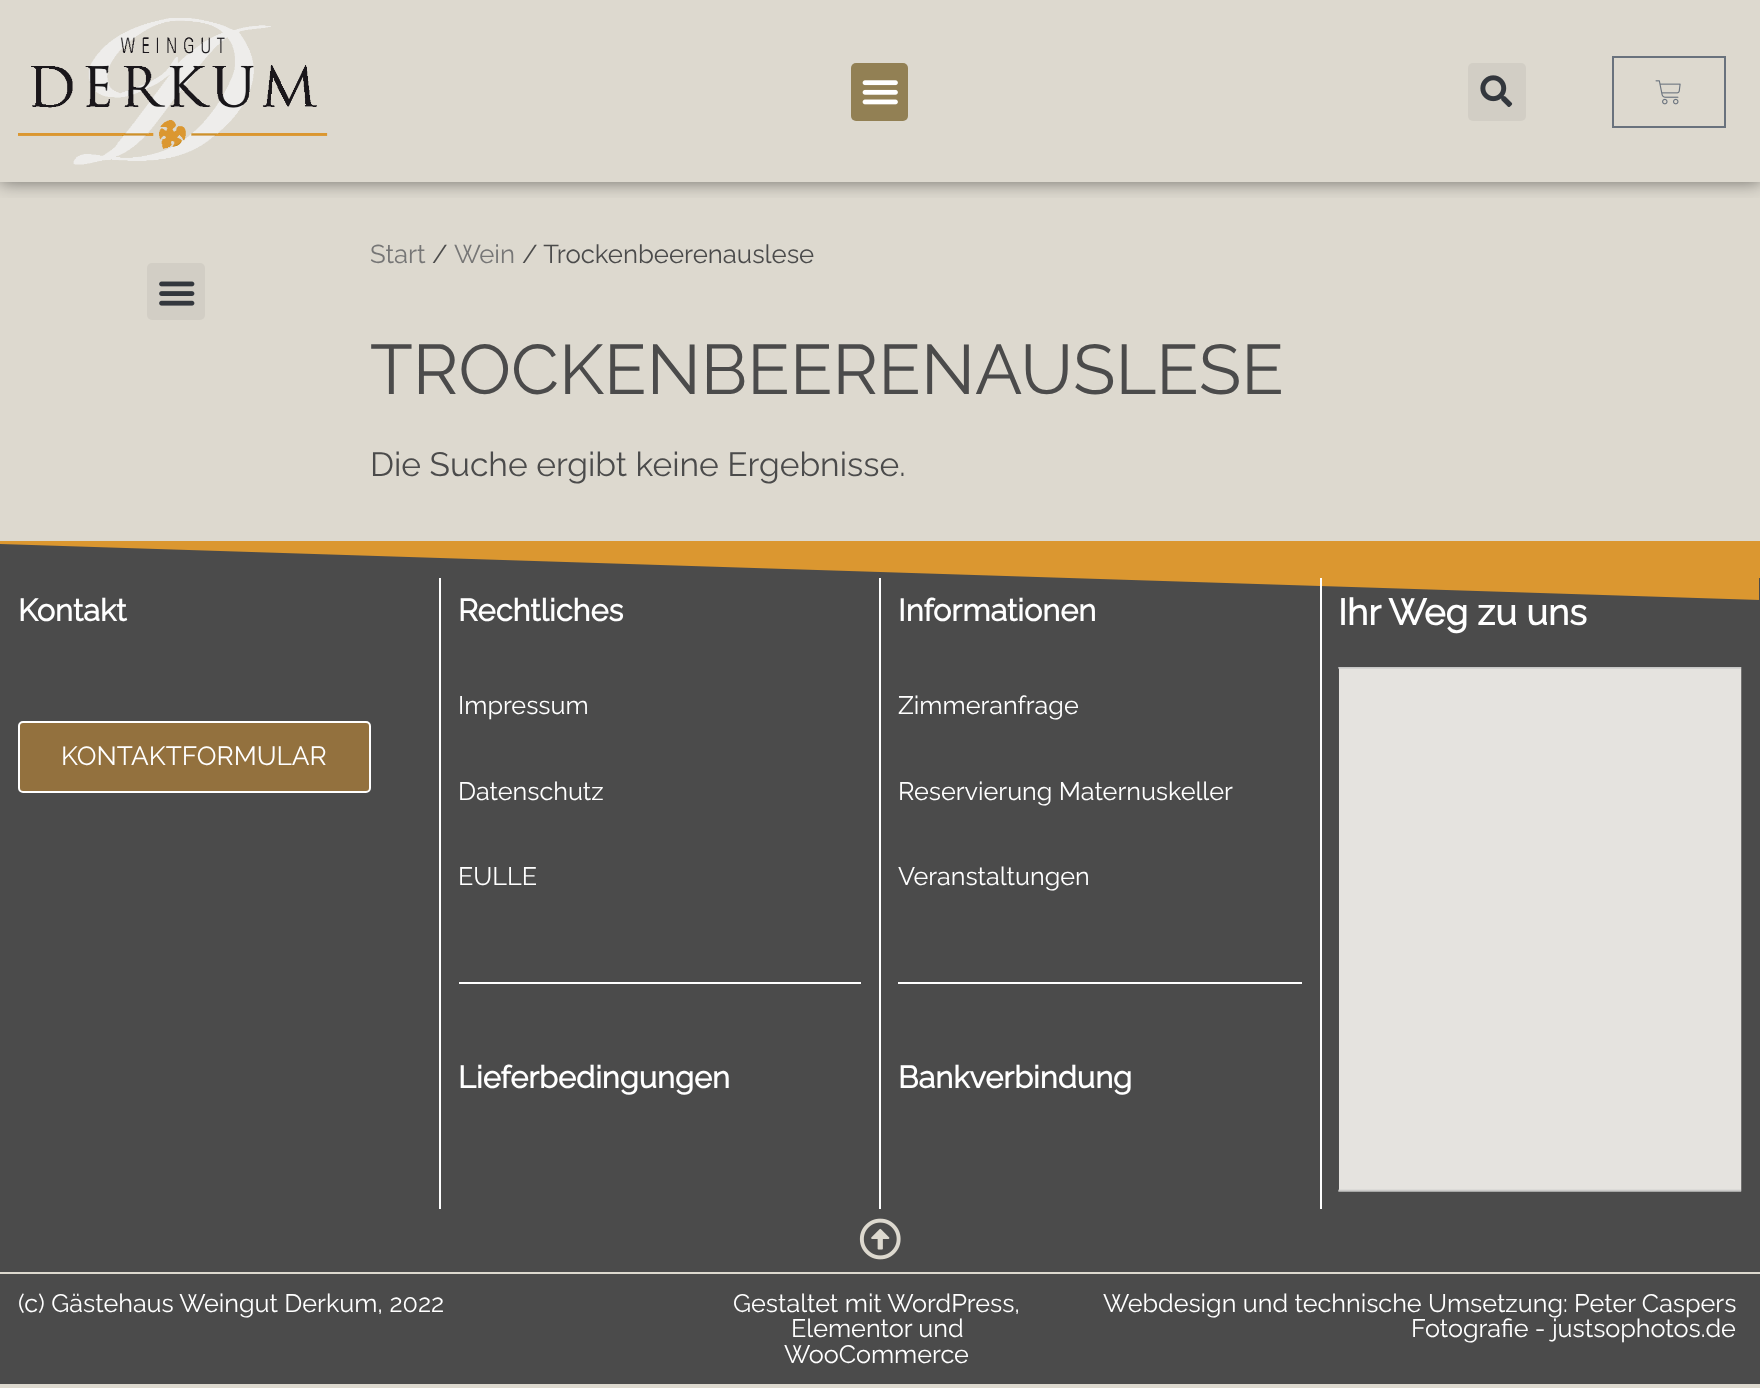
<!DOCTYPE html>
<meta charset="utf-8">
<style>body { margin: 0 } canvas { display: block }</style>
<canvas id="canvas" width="1760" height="1388"></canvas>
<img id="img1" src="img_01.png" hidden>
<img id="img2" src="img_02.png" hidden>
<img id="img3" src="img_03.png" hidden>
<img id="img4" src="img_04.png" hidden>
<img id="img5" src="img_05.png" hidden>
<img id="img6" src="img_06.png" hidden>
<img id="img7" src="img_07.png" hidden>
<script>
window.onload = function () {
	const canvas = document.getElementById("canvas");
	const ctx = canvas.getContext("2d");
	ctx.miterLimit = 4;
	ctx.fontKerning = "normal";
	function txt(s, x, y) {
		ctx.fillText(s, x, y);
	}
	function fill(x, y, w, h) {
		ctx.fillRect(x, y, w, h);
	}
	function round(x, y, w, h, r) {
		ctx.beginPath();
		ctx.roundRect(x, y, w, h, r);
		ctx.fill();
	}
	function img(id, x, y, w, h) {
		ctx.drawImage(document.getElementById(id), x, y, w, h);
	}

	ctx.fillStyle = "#DDD9CF";
	fill(0, 0, 1760, 1388);
	ctx.save();
	ctx.beginPath();
	ctx.rect(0, 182, 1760, 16);
	ctx.clip();
	ctx.fillStyle = "rgba(0, 0, 0, 0.5)";
	ctx.filter = "blur(9px)";
	ctx.beginPath();
	ctx.rect(0, 0, 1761, 182);
	ctx.fill();
	ctx.filter = "none";
	ctx.restore();
	img("img1", 18, 18, 310, 147);
	ctx.fillStyle = "#928054";
	round(851, 63, 57, 58, 5);
	img("img2", 862, 80, 36, 25);
	ctx.fillStyle = "#D2CEC5";
	round(1468, 63, 58, 58, 5);
	img("img3", 1480, 75, 33, 32);
	ctx.strokeStyle = "#69727D";
	ctx.lineWidth = 2;
	ctx.strokeRect(1613, 57, 112, 70);
	img("img4", 1655, 80, 26, 25);
	round(147, 263, 58, 57, 5);
	img("img5", 159, 281, 36, 25);
	ctx.fillStyle = "#4B4B4B";
	fill(0, 544, 1759, 665);
	ctx.fillStyle = "#DB9730";
	ctx.beginPath();
	ctx.moveTo(-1, 544);
	ctx.lineTo(-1, 541);
	ctx.lineTo(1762, 541);
	ctx.lineTo(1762, 600);
	ctx.closePath();
	ctx.fill();
	ctx.fillStyle = "#FFFFFF";
	fill(439, 578, 2, 631);
	ctx.fillStyle = "#93713E";
	ctx.beginPath();
	ctx.roundRect(19, 722, 351, 70, 4);
	ctx.fill();
	ctx.strokeStyle = "#FFFFFF";
	ctx.stroke();
	ctx.fillStyle = "#FFFFFF";
	fill(879, 578, 2, 631);
	fill(459, 982, 402, 2);
	fill(1320, 578, 2, 631);
	fill(898, 982, 404, 2);
	ctx.fillStyle = "#4B4B4B";
	fill(1759, 578, 1, 631);
	img("img6", 1338, 667, 404, 525);
	fill(0, 1209, 1760, 63);
	img("img7", 859, 1218, 42, 42);
	fill(0, 1274, 1760, 110);
	ctx.font = "25.75px Raleway";
	ctx.fillStyle = "#767676";
	txt("Start", 370, 263);
	ctx.fillStyle = "#4B4B4B";
	txt("/", 432, 263);
	ctx.fillStyle = "#767676";
	txt("Wein", 454, 263);
	ctx.fillStyle = "#4B4B4B";
	txt("/ Trockenbeerenauslese", 522, 263);
	ctx.font = "70px Raleway";
	txt("TROCKENBEERENAUSLESE", 370, 394);
	ctx.font = "33.6px Raleway";
	txt("Die Suche ergibt keine Ergebnisse.", 370, 476);
	ctx.font = "bold 30.75px Raleway";
	ctx.fillStyle = "#FFFFFF";
	txt("Kontakt", 18, 621);
	ctx.font = "26.25px Raleway";
	txt("KONTAKTFORMULAR", 61, 765);
	ctx.font = "bold 30.75px Raleway";
	txt("Rechtliches", 458, 621);
	ctx.font = "25.2px Raleway";
	txt("Impressum", 458, 714);
	txt("Datenschutz", 458, 800);
	txt("EULLE", 458, 885);
	ctx.font = "bold 30.75px Raleway";
	txt("Lieferbedingungen", 458, 1088);
	txt("Informationen", 898, 621);
	ctx.font = "25.2px Raleway";
	txt("Zimmeranfrage", 898, 714);
	txt("Reservierung Maternuskeller", 898, 800);
	txt("Veranstaltungen", 898, 885);
	ctx.font = "bold 30.75px Raleway";
	txt("Bankverbindung", 898, 1088);
	ctx.font = "bold 36.5px Raleway";
	txt("Ihr Weg zu uns", 1338, 625);
	ctx.font = "25.2px Raleway";
	txt("(c) Gästehaus Weingut Derkum, 2022", 18, 1312);
	txt("Gestaltet mit WordPress,", 733, 1312);
	txt("Elementor und", 791, 1337);
	txt("WooCommerce", 784, 1363);
	txt("Webdesign und technische Umsetzung: Peter Caspers", 1103, 1312);
	txt("Fotografie - justsophotos.de", 1411, 1337);
};
</script>
